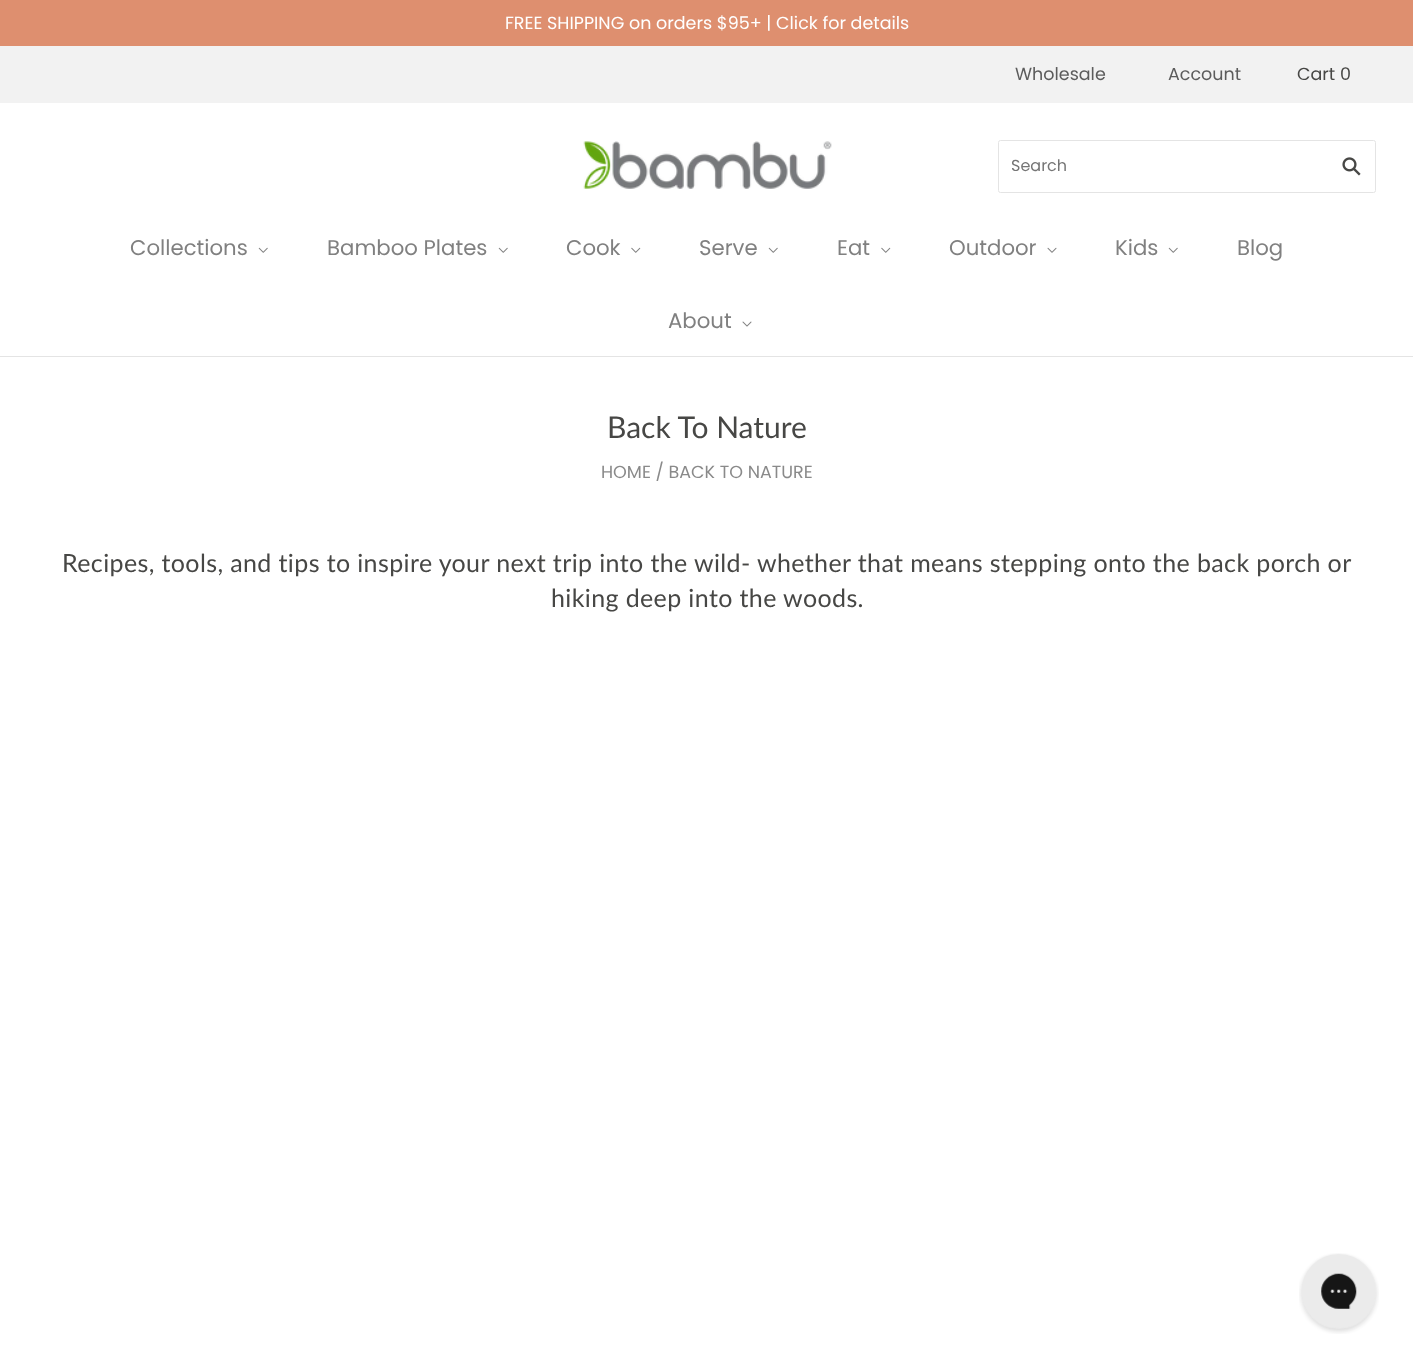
<!DOCTYPE html>
<meta charset="utf-8">
<style>body { margin: 0 } canvas { display: block }</style>
<canvas id="canvas" width="1413" height="1362"></canvas>
<img id="img1" src="img_01.png" hidden>
<img id="img2" src="img_02.png" hidden>
<img id="img3" src="img_03.png" hidden>
<img id="img4" src="img_04.png" hidden>
<img id="img5" src="img_05.png" hidden>
<img id="img6" src="img_06.png" hidden>
<img id="img7" src="img_07.png" hidden>
<script>
window.onload = function () {
	const canvas = document.getElementById("canvas");
	const ctx = canvas.getContext("2d");
	ctx.miterLimit = 4;
	ctx.fontKerning = "normal";
	function txt(s, x, y) {
		ctx.fillText(s, x, y);
	}
	function fill(x, y, w, h) {
		ctx.fillRect(x, y, w, h);
	}
	function img(id, x, y, w, h) {
		ctx.drawImage(document.getElementById(id), x, y, w, h);
	}

	ctx.fillStyle = "#FFFFFF";
	fill(0, 0, 1413, 1362);
	ctx.fillStyle = "#DE8F6F";
	fill(0, 0, 1413, 46);
	ctx.fillStyle = "#E4E4E4";
	fill(0, 356, 1413, 1);
	ctx.fillStyle = "#F2F2F2";
	fill(0, 46, 1413, 57);
	img("img1", 583, 141, 249, 48);
	ctx.beginPath();
	ctx.roundRect(998.5, 140.5, 377, 52, 2);
	ctx.strokeStyle = "#E4E4E4";
	ctx.stroke();
	img("img2", 1342, 157, 19, 19);
	img("img3", 258, 247, 10, 6);
	img("img3", 498, 247, 10, 6);
	img("img4", 631, 247, 10, 6);
	img("img3", 768, 247, 10, 6);
	img("img4", 881, 247, 10, 6);
	img("img5", 1047, 247, 10, 6);
	img("img3", 1168, 247, 10, 6);
	img("img6", 742, 321, 10, 6);
	img("img7", 1299, 1253, 80, 81);
	ctx.font = "17.5px Poppins";
	ctx.fillStyle = "#FFFFFF";
	txt("FREE SHIPPING on orders $95+ | Click for details", 505, 29);
	ctx.fillStyle = "#5C5C5C";
	txt("Wholesale", 1015, 80);
	txt("Account", 1168, 80);
	ctx.fillStyle = "#474745";
	txt("Cart 0", 1297, 80);
	ctx.font = "16px Poppins";
	ctx.fillStyle = "#757575";
	txt("Search", 1011, 171);
	ctx.font = "21.25px Poppins";
	ctx.fillStyle = "#808080";
	txt("Collections", 130, 255);
	txt("Bamboo Plates", 327, 255);
	txt("Cook", 566, 255);
	txt("Serve", 699, 255);
	txt("Eat", 837, 255);
	txt("Outdoor", 949, 255);
	txt("Kids", 1115, 255);
	txt("Blog", 1237, 255);
	txt("About", 668, 328);
	ctx.font = "30px Lato";
	ctx.fillStyle = "#474745";
	txt("Back To Nature", 607, 438);
	ctx.font = "17.5px Poppins";
	ctx.fillStyle = "#8A8A8A";
	txt("HOME / BACK TO NATURE", 601, 478);
	ctx.letterSpacing = "0.38px";
	ctx.font = "25px Lato";
	ctx.fillStyle = "#474745";
	txt("Recipes, tools, and tips to inspire your next trip into the wild- whether that means stepping onto the back porch or", 62, 572);
	txt("hiking deep into the woods.", 551, 607);
};
</script>
